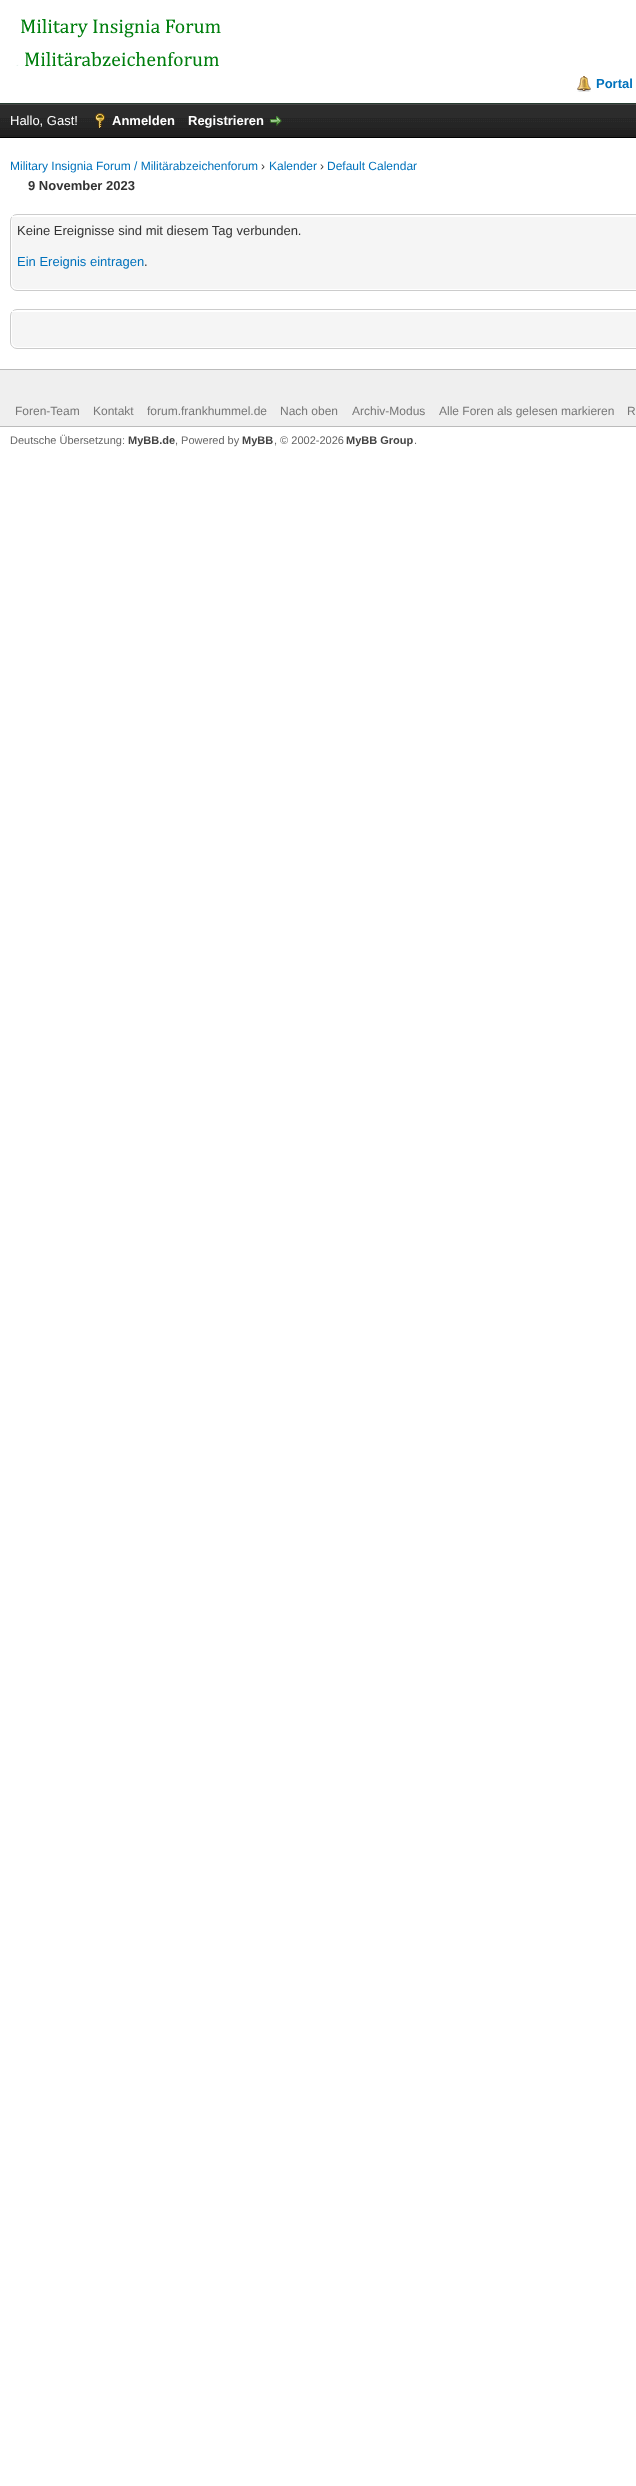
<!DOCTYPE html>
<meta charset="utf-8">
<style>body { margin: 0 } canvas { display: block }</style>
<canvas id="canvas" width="636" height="2486"></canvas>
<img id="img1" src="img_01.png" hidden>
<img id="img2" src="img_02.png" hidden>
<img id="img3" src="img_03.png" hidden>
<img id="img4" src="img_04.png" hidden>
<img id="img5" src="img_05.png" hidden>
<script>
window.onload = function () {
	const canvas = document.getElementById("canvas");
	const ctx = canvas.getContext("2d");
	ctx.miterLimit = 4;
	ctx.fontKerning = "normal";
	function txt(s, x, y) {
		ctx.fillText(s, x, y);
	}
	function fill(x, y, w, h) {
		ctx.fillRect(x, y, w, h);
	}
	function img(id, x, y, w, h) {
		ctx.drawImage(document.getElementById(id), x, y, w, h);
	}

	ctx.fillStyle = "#FFFFFF";
	fill(0, 0, 636, 2486);
	ctx.fillStyle = "#263C30";
	fill(0, 103, 636, 1);
	img("img1", 16, 19, 205, 48);
	img("img2", 577, 76, 14, 16);
	img("img3", 0, 105, 636, 32);
	ctx.fillStyle = "#444444";
	fill(0, 104, 636, 1);
	ctx.fillStyle = "#000000";
	fill(0, 137, 636, 1);
	img("img4", 95, 113, 10, 15);
	img("img5", 270, 116, 12, 10);
	ctx.beginPath();
	ctx.roundRect(10.5, 214.5, 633, 76, 6.5);
	ctx.strokeStyle = "#CCCCCC";
	ctx.stroke();
	ctx.fillStyle = "#F5F5F5";
	ctx.beginPath();
	ctx.moveTo(12, 216);
	ctx.lineTo(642, 216);
	ctx.lineTo(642, 283);
	ctx.bezierCurveTo(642, 286.5, 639.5, 289, 636, 289);
	ctx.lineTo(18, 289);
	ctx.bezierCurveTo(14.5, 289, 12, 286.5, 12, 283);
	ctx.closePath();
	ctx.fill();
	ctx.fillStyle = "#FFFFFF";
	fill(12, 216, 624, 1);
	ctx.beginPath();
	ctx.roundRect(10.5, 309.5, 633, 39, 6.5);
	ctx.stroke();
	ctx.fillStyle = "#F5F5F5";
	ctx.beginPath();
	ctx.moveTo(12, 311);
	ctx.lineTo(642, 311);
	ctx.lineTo(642, 341);
	ctx.bezierCurveTo(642, 344.5, 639.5, 347, 636, 347);
	ctx.lineTo(18, 347);
	ctx.bezierCurveTo(14.5, 347, 12, 344.5, 12, 341);
	ctx.closePath();
	ctx.fill();
	ctx.fillStyle = "#FFFFFF";
	fill(12, 311, 624, 1);
	ctx.fillStyle = "#EFEFEF";
	fill(0, 370, 636, 56);
	ctx.fillStyle = "#BBBBBB";
	fill(0, 369, 636, 1);
	fill(0, 426, 636, 1);
	ctx.font = "bold 13px Liberation Sans";
	ctx.fillStyle = "#0072BC";
	txt("Portal", 596, 88);
	ctx.font = "13px Liberation Sans";
	ctx.fillStyle = "#FFFFFF";
	txt("Hallo, Gast!", 10, 125);
	ctx.font = "bold 13px Liberation Sans";
	txt("Anmelden", 112, 125);
	txt("Registrieren", 188, 125);
	ctx.font = "12px Liberation Sans";
	ctx.fillStyle = "#0072BC";
	txt("Military Insignia Forum / Militärabzeichenforum", 10, 170);
	ctx.fillStyle = "#333333";
	txt("›", 261, 170);
	ctx.fillStyle = "#0072BC";
	txt("Kalender", 269, 170);
	ctx.fillStyle = "#333333";
	txt("›", 320, 170);
	ctx.fillStyle = "#0072BC";
	txt("Default Calendar", 327, 170);
	ctx.font = "bold 13px Liberation Sans";
	ctx.fillStyle = "#333333";
	txt("9 November 2023", 28, 190);
	ctx.font = "13px Liberation Sans";
	txt("Keine Ereignisse sind mit diesem Tag verbunden.", 17, 235);
	ctx.fillStyle = "#0072BC";
	txt("Ein Ereignis eintragen", 17, 266);
	ctx.fillStyle = "#333333";
	txt(".", 144, 266);
	ctx.font = "12px Liberation Sans";
	ctx.fillStyle = "#777777";
	txt("Foren-Team", 15, 415);
	txt("Kontakt", 93, 415);
	txt("forum.frankhummel.de", 147, 415);
	txt("Nach oben", 280, 415);
	txt("Archiv-Modus", 352, 415);
	txt("Alle Foren als gelesen markieren", 439, 415);
	txt("R", 627, 415);
	ctx.font = "11px Liberation Sans";
	ctx.fillStyle = "#666666";
	txt("Deutsche Übersetzung:", 10, 444);
	ctx.font = "bold 11px Liberation Sans";
	ctx.fillStyle = "#444444";
	txt("MyBB.de", 128, 444);
	ctx.font = "11px Liberation Sans";
	ctx.fillStyle = "#666666";
	txt(", Powered by", 175, 444);
	ctx.font = "bold 11px Liberation Sans";
	ctx.fillStyle = "#444444";
	txt("MyBB", 242, 444);
	ctx.font = "11px Liberation Sans";
	ctx.fillStyle = "#666666";
	txt(", © 2002-2026", 274, 444);
	ctx.font = "bold 11px Liberation Sans";
	ctx.fillStyle = "#444444";
	txt("MyBB Group", 346, 444);
	ctx.font = "11px Liberation Sans";
	ctx.fillStyle = "#666666";
	txt(".", 414, 444);
};
</script>
